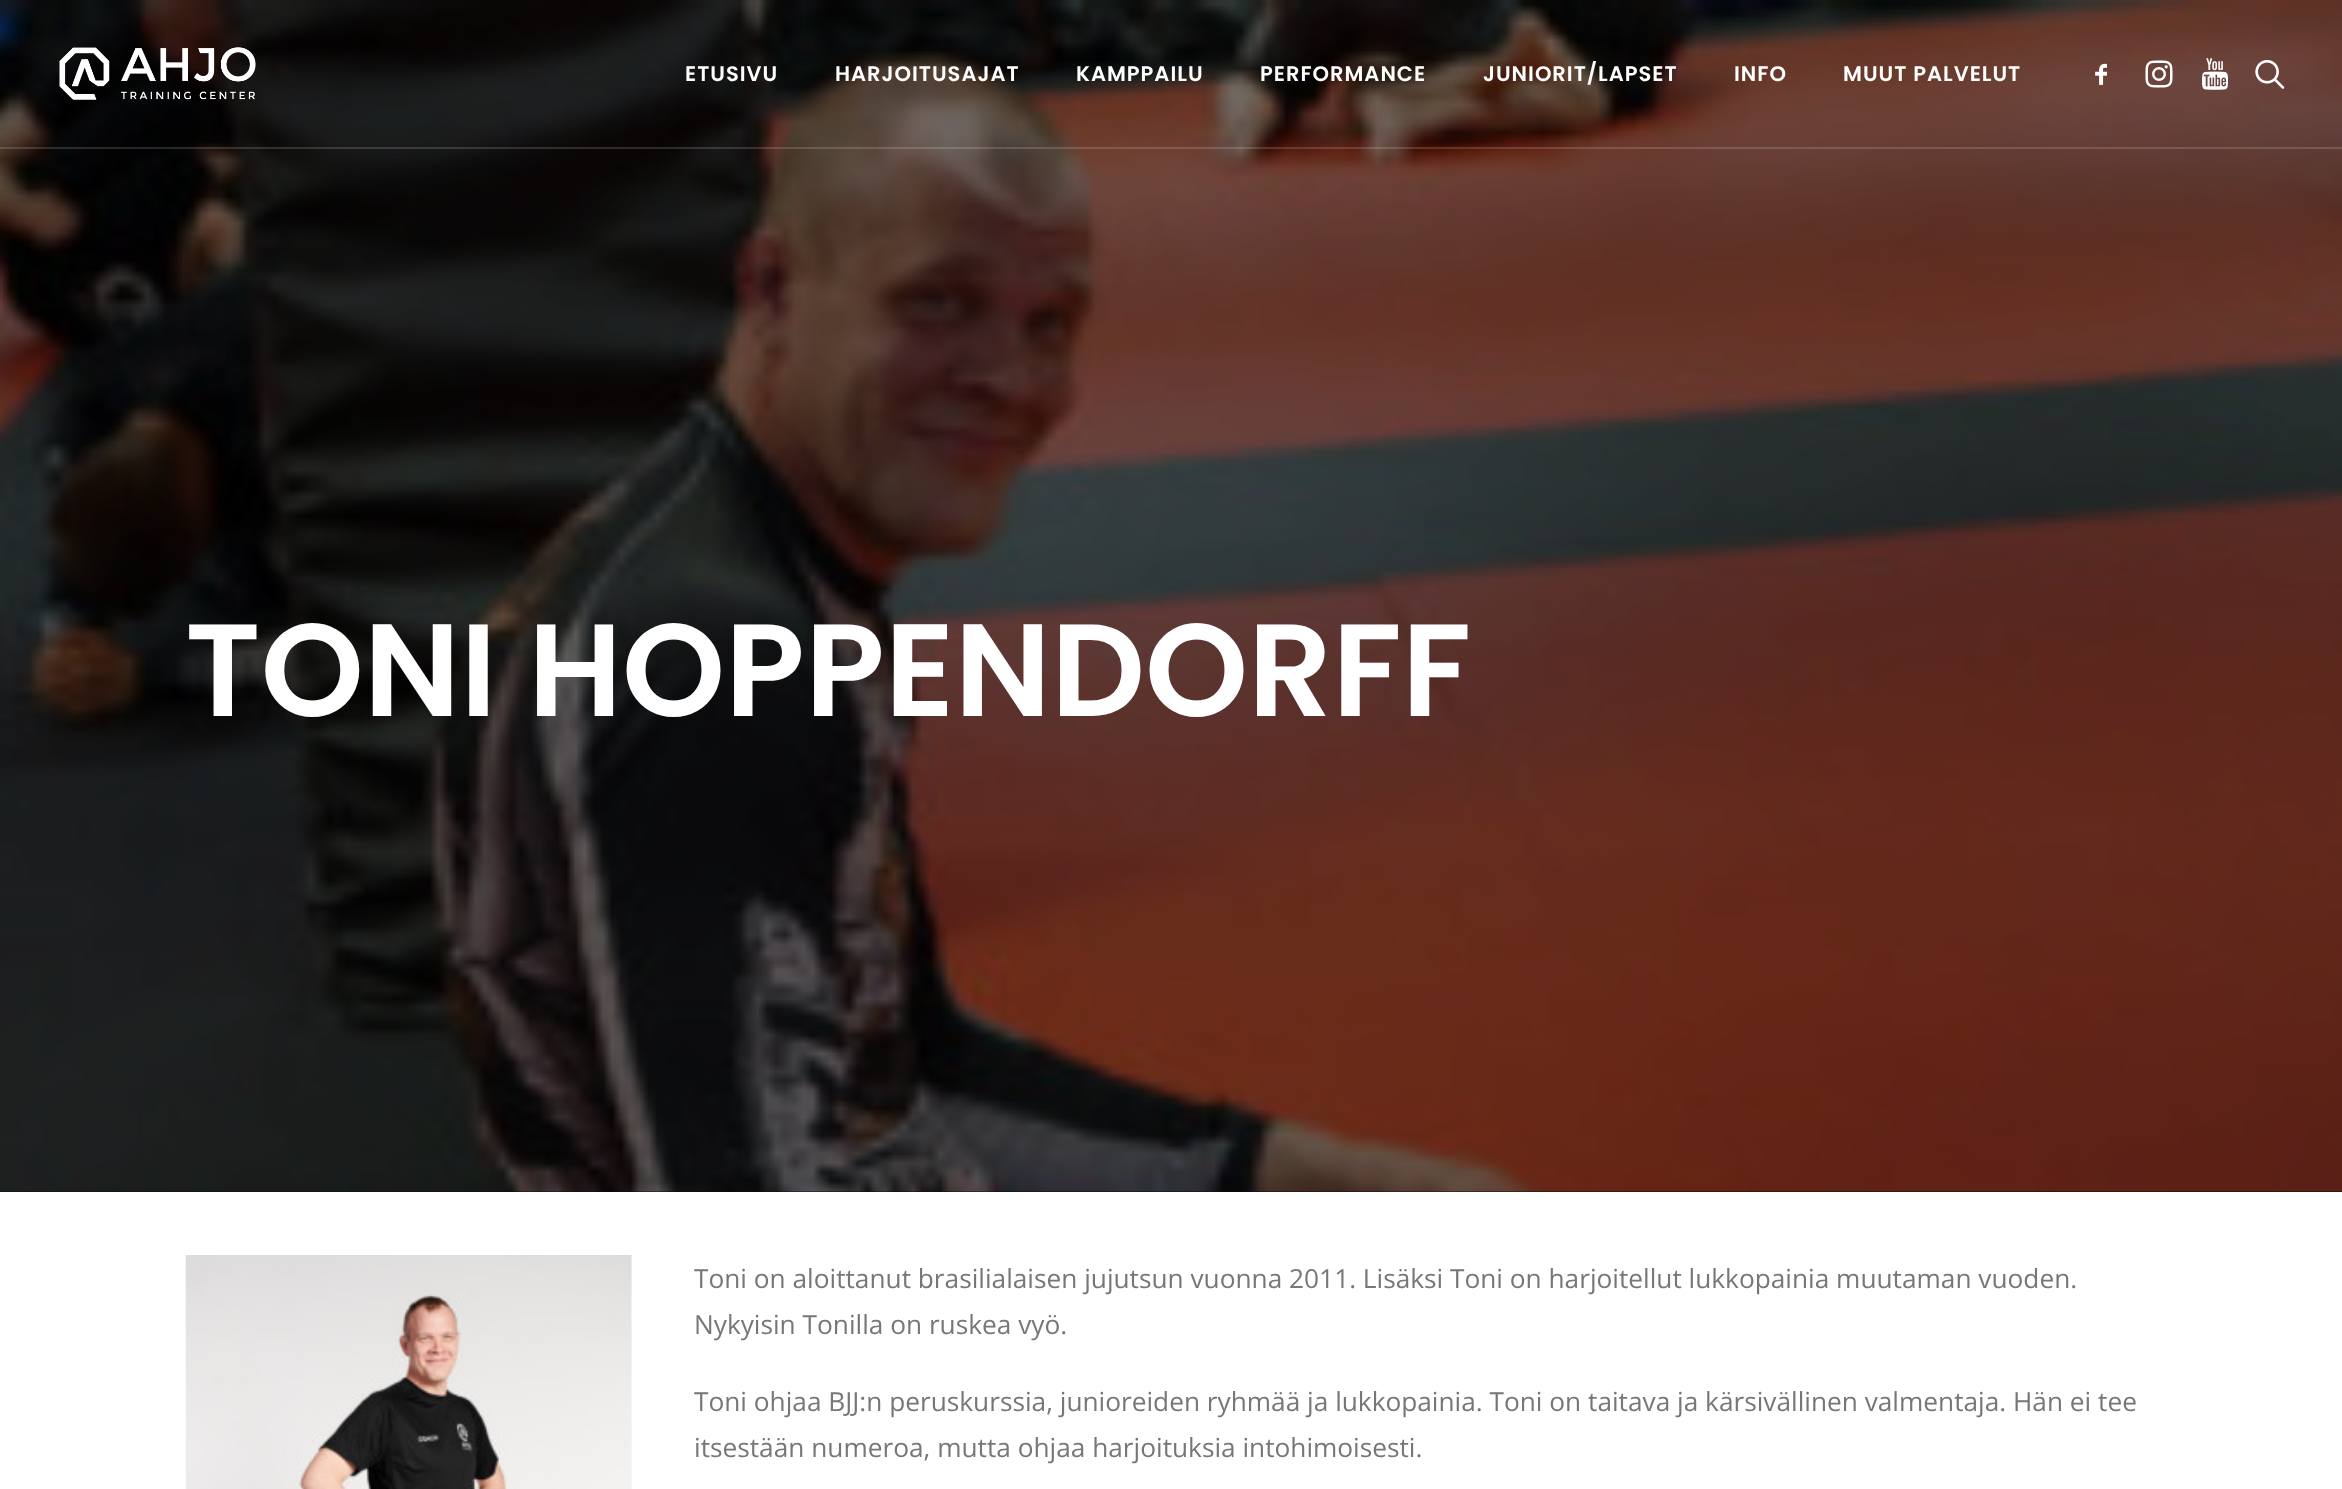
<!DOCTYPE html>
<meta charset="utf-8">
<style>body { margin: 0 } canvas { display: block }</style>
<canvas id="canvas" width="2342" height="1489"></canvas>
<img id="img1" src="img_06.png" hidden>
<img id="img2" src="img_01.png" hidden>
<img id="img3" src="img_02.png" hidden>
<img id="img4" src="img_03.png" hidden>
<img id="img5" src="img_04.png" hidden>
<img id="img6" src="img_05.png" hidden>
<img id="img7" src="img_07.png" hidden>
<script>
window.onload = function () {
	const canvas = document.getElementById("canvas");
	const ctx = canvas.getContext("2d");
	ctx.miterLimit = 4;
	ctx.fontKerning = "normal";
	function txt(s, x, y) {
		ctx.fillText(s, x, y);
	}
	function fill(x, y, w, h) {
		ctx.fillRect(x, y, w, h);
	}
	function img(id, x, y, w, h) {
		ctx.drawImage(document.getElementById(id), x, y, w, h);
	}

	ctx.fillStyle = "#FFFFFF";
	fill(0, 0, 2342, 1489);
	ctx.fillStyle = "#0A0B0C";
	fill(0, 1191, 2342, 1);
	img("img1", 0, 0, 2342, 1192);
	ctx.fillStyle = "rgba(255, 255, 255, 0.15)";
	fill(0, 147, 2342, 2);
	img("img2", 59, 47, 197, 53);
	img("img3", 2095, 63, 12, 22);
	img("img4", 2145, 60, 28, 28);
	img("img5", 2202, 58, 26, 32);
	img("img6", 2255, 59, 30, 30);
	img("img7", 185, 1255, 447, 234);
	ctx.letterSpacing = "1px";
	ctx.font = "600 21px Poppins";
	ctx.fillStyle = "#FFFFFF";
	txt("ETUSIVU", 685, 81);
	txt("HARJOITUSAJAT", 835, 81);
	txt("KAMPPAILU", 1076, 81);
	txt("PERFORMANCE", 1260, 81);
	txt("JUNIORIT/LAPSET", 1483, 81);
	txt("INFO", 1734, 81);
	txt("MUUT PALVELUT", 1843, 81);
	ctx.letterSpacing = "0px";
	ctx.font = "600 131.25px Poppins";
	txt("TONI HOPPENDORFF", 185, 716);
	ctx.font = "26.25px Open Sans";
	ctx.fillStyle = "#777777";
	txt("Toni on aloittanut brasilialaisen jujutsun vuonna 2011. Lisäksi Toni on harjoitellut lukkopainia muutaman vuoden.", 694, 1288);
	txt("Nykyisin Tonilla on ruskea vyö.", 694, 1334);
	txt("Toni ohjaa BJJ:n peruskurssia, junioreiden ryhmää ja lukkopainia. Toni on taitava ja kärsivällinen valmentaja. Hän ei tee", 694, 1411);
	txt("itsestään numeroa, mutta ohjaa harjoituksia intohimoisesti.", 694, 1457);
};
</script>
